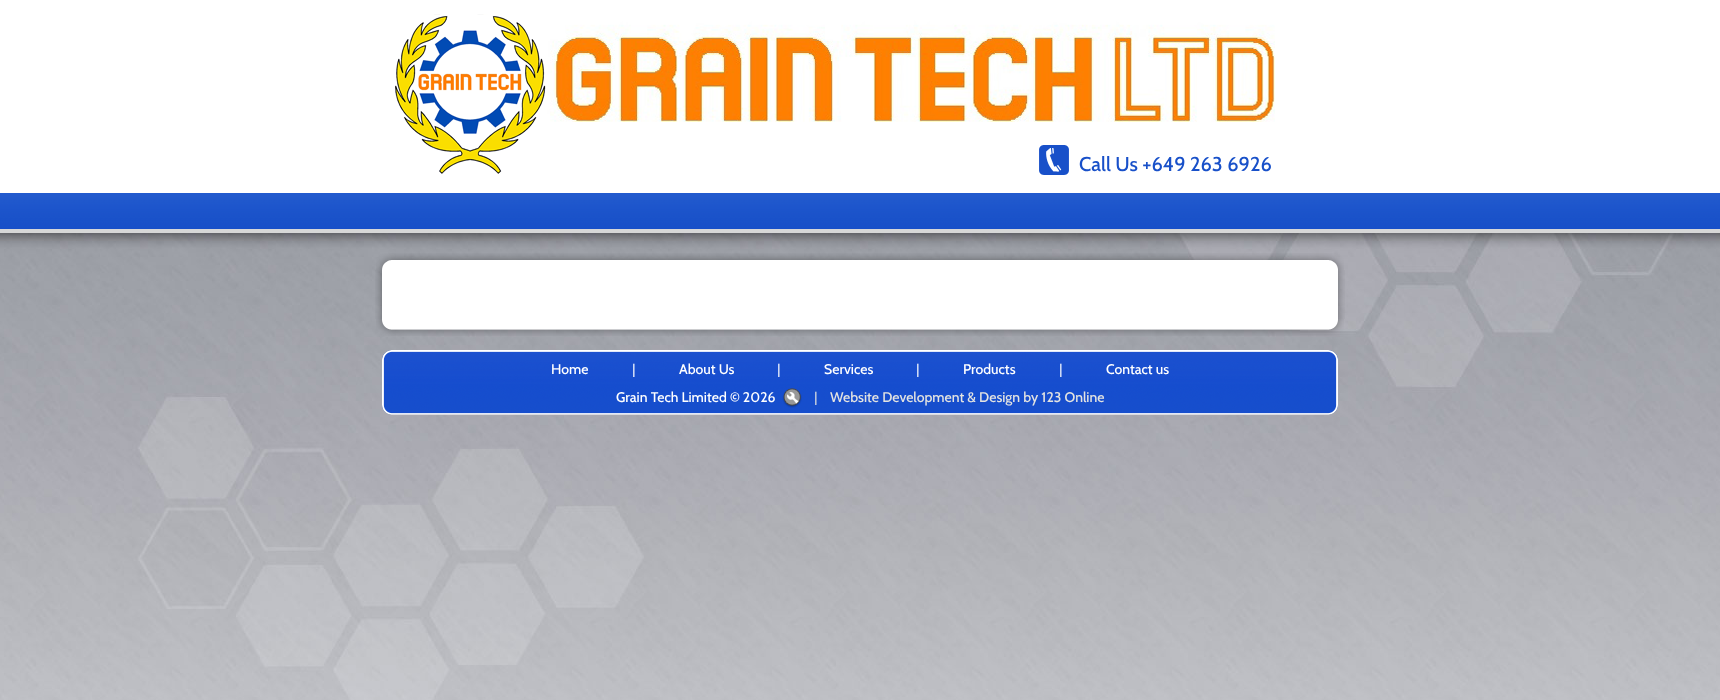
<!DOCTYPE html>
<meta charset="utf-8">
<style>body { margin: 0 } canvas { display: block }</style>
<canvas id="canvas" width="1720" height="700"></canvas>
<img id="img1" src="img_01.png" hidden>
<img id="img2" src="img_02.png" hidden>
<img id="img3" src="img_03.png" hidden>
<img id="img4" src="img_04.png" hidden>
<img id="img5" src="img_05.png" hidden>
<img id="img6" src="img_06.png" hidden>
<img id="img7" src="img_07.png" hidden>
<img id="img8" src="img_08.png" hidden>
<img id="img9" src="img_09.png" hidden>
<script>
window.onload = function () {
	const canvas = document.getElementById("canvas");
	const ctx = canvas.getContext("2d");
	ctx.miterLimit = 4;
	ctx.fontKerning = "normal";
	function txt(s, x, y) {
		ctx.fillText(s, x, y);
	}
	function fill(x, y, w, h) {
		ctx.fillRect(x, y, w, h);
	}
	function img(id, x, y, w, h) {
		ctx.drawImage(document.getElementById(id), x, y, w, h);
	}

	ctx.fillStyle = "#FFFFFF";
	fill(0, 0, 1720, 700);
	img("img1", 0, 233, 1720, 467);
	img("img2", 0, 0, 1720, 233);
	img("img3", 395, 14, 880, 160);
	img("img4", 1039, 145, 30, 30);
	img("img5", 376, 253, 968, 17);
	img("img6", 376, 319, 968, 17);
	img("img7", 375, 270, 970, 49);
	img("img8", 382, 350, 956, 65);
	img("img9", 782, 388, 20, 20);
	ctx.font = "500 20px Cabin";
	ctx.fillStyle = "#1850C9";
	txt("Call Us +649 263 6926", 1079, 171);
	ctx.font = "500 14px Cabin";
	ctx.fillStyle = "#FFFFFF";
	txt("Home", 551, 374);
	ctx.font = "14px Liberation Sans";
	txt("|", 632, 374);
	ctx.font = "500 14px Cabin";
	txt("About Us", 679, 374);
	ctx.font = "14px Liberation Sans";
	txt("|", 777, 374);
	ctx.font = "500 14px Cabin";
	txt("Services", 824, 374);
	ctx.font = "14px Liberation Sans";
	txt("|", 916, 374);
	ctx.font = "500 14px Cabin";
	txt("Products", 963, 374);
	ctx.font = "14px Liberation Sans";
	txt("|", 1059, 374);
	ctx.font = "500 14px Cabin";
	txt("Contact us", 1106, 374);
	txt("Grain Tech Limited © 2026", 616, 402);
	ctx.font = "14px Liberation Sans";
	ctx.fillStyle = "#E4E4E1";
	txt("|", 814, 402);
	ctx.font = "500 14px Cabin";
	txt("Website Development & Design by 123 Online", 830, 402);
};
</script>
